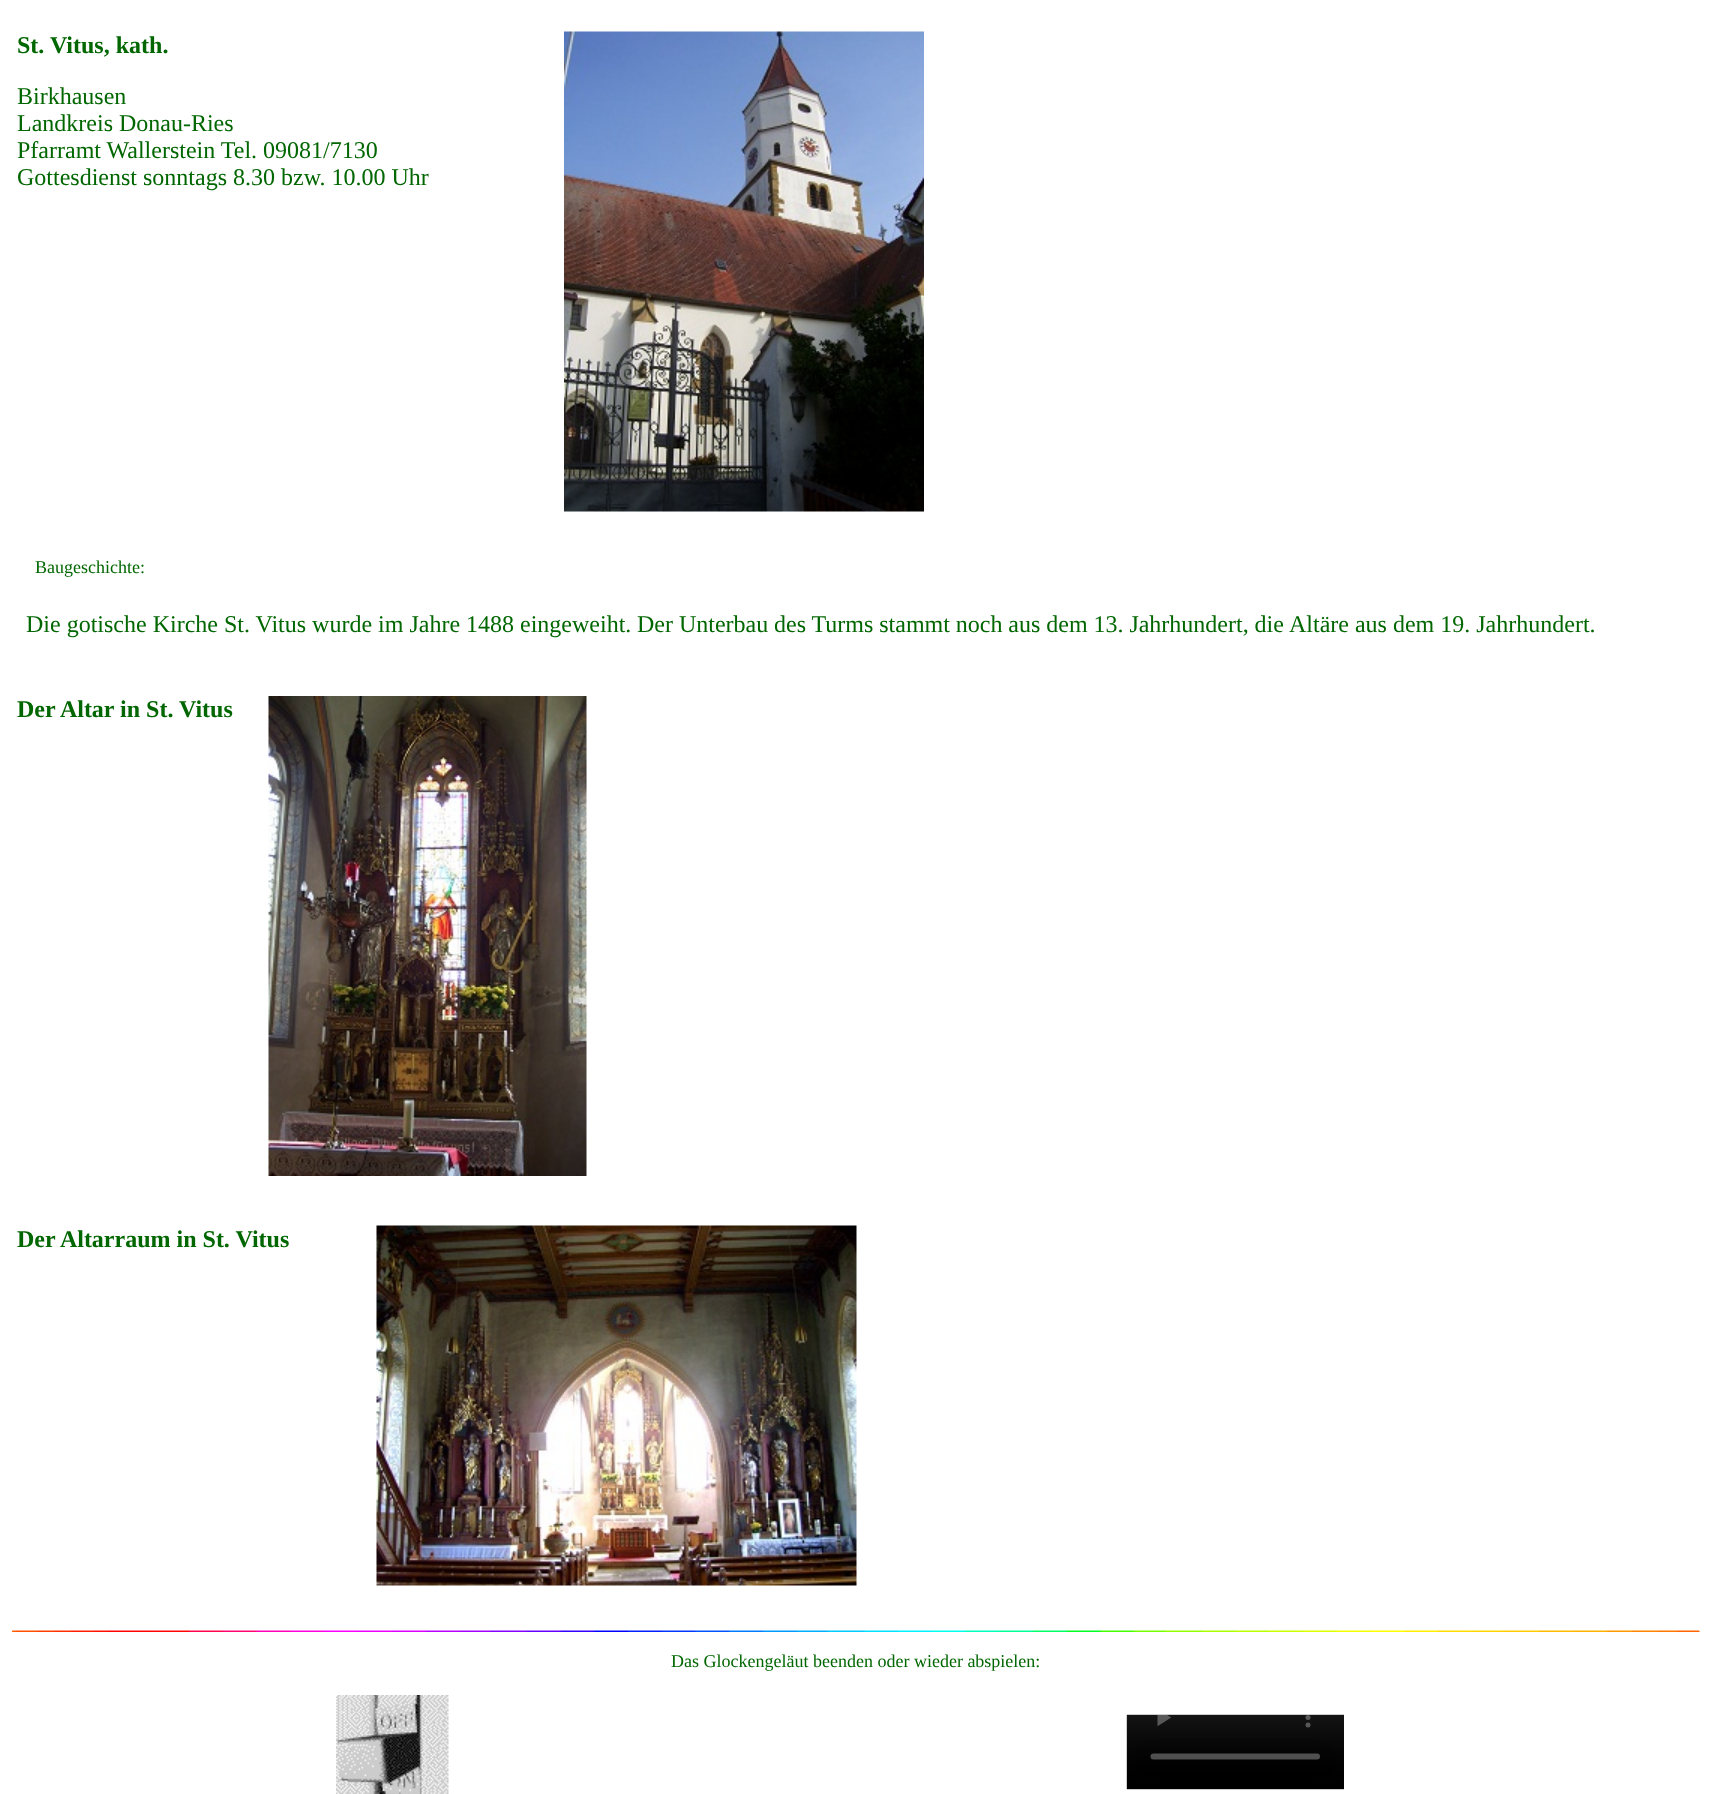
<!DOCTYPE html>
<meta charset="utf-8">
<style>body { margin: 0 } canvas { display: block }</style>
<canvas id="canvas" width="1711" height="1794"></canvas>
<img id="img1" src="img_01.png" hidden>
<img id="img2" src="img_02.png" hidden>
<img id="img3" src="img_03.png" hidden>
<img id="img4" src="img_04.png" hidden>
<img id="img5" src="img_05.png" hidden>
<img id="img6" src="img_06.png" hidden>
<script>
window.onload = function () {
	const canvas = document.getElementById("canvas");
	const ctx = canvas.getContext("2d");
	ctx.miterLimit = 4;
	ctx.fontKerning = "normal";
	function txt(s, x, y) {
		ctx.fillText(s, x, y);
	}
	function fill(x, y, w, h) {
		ctx.fillRect(x, y, w, h);
	}
	function img(id, x, y, w, h) {
		ctx.drawImage(document.getElementById(id), x, y, w, h);
	}

	ctx.fillStyle = "#FFFFFF";
	fill(0, 0, 1711, 1794);
	img("img1", 564, 31, 360, 481);
	img("img2", 268, 696, 319, 480);
	img("img3", 376, 1225, 481, 361);
	img("img4", 12, 1630, 1688, 2);
	img("img5", 336, 1695, 113, 99);
	img("img6", 1126, 1714, 218, 76);
	ctx.font = "bold 24px Liberation Serif";
	ctx.fillStyle = "#006600";
	txt("St. Vitus, kath.", 17, 53);
	ctx.font = "24px Liberation Serif";
	txt("Birkhausen", 17, 104);
	txt("Landkreis Donau-Ries", 17, 131);
	txt("Pfarramt Wallerstein Tel. 09081/7130", 17, 158);
	txt("Gottesdienst sonntags 8.30 bzw. 10.00 Uhr", 17, 185);
	ctx.font = "18px Liberation Serif";
	txt("Baugeschichte:", 35, 573);
	ctx.font = "24px Liberation Serif";
	txt("Die gotische Kirche St. Vitus wurde im Jahre 1488 eingeweiht.", 26, 632);
	ctx.wordSpacing = "-0.1px";
	txt("Der Unterbau des Turms stammt noch aus dem 13. Jahrhundert, die", 637, 632);
	ctx.wordSpacing = "0px";
	txt("Altäre aus dem 19. Jahrhundert.", 1289, 632);
	ctx.font = "bold 24px Liberation Serif";
	txt("Der Altar in St. Vitus", 17, 717);
	txt("Der Altarraum in St. Vitus", 17, 1247);
	ctx.font = "18px Liberation Serif";
	txt("Das Glockengeläut beenden oder wieder abspielen:", 671, 1667);
};
</script>
